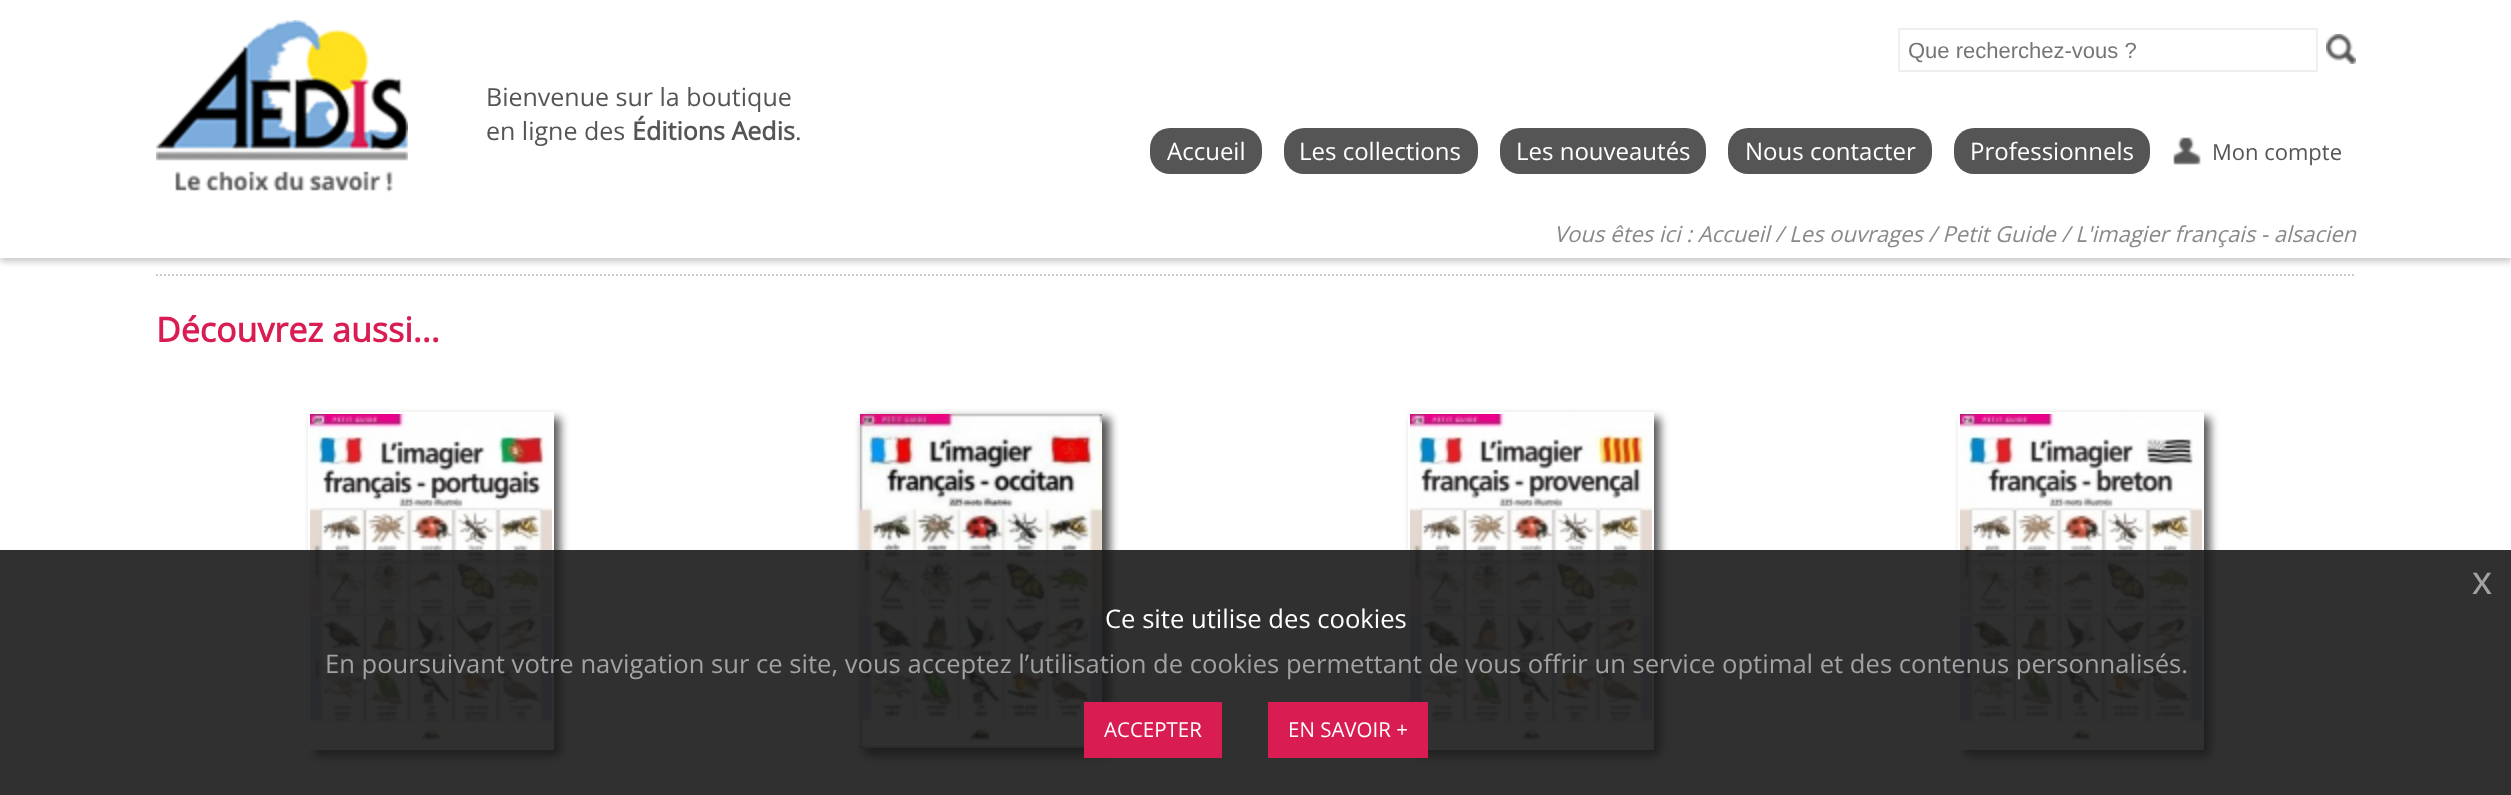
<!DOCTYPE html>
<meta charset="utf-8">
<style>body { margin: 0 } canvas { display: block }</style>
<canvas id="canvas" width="2511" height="795"></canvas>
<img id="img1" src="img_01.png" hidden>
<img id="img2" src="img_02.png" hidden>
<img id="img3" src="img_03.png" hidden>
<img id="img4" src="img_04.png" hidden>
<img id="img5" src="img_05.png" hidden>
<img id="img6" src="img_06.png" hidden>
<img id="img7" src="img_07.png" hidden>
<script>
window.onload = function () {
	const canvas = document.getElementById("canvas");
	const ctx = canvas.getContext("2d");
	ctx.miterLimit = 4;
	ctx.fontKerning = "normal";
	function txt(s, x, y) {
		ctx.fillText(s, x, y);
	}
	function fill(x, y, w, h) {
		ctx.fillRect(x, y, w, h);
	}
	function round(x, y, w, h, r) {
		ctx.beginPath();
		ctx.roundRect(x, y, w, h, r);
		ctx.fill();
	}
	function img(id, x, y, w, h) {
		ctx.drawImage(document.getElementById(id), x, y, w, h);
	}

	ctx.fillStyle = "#FFFFFF";
	fill(0, 0, 2511, 795);
	ctx.fillStyle = "#CCCCCC";
	ctx.filter = "blur(3px)";
	ctx.beginPath();
	ctx.rect(0, 4, 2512, 258);
	ctx.fill();
	ctx.filter = "none";
	ctx.fillStyle = "#FFFFFF";
	fill(0, 0, 2511, 258);
	img("img1", 156, 20, 252, 173);
	ctx.strokeStyle = "#EFEFEF";
	ctx.lineWidth = 2;
	ctx.strokeRect(1899, 29, 418, 42);
	img("img2", 2326, 34, 30, 30);
	ctx.fillStyle = "#555555";
	round(1150, 128, 112, 46, 20);
	round(1284, 128, 194, 46, 20);
	round(1500, 128, 206, 46, 20);
	round(1728, 128, 204, 46, 20);
	round(1954, 128, 196, 46, 20);
	img("img3", 2173, 137, 28, 28);
	ctx.beginPath();
	ctx.moveTo(156, 275);
	ctx.lineTo(2356, 275);
	ctx.strokeStyle = "#CCCCCC";
	ctx.setLineDash([2, 2]);
	ctx.stroke();
	ctx.save();
	ctx.beginPath();
	ctx.moveTo(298, 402);
	ctx.lineTo(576, 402);
	ctx.lineTo(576, 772);
	ctx.lineTo(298, 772);
	ctx.closePath();
	ctx.moveTo(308, 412);
	ctx.lineTo(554, 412);
	ctx.lineTo(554, 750);
	ctx.lineTo(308, 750);
	ctx.closePath();
	ctx.clip("evenodd");
	ctx.filter = "blur(5px)";
	ctx.beginPath();
	ctx.rect(314, 418, 246, 338);
	ctx.fill();
	ctx.filter = "none";
	ctx.restore();
	img("img4", 310, 414, 242, 328);
	ctx.filter = "blur(5px)";
	ctx.beginPath();
	ctx.rect(864, 418, 246, 338);
	ctx.fill();
	ctx.filter = "none";
	img("img5", 860, 414, 242, 334);
	ctx.save();
	ctx.beginPath();
	ctx.moveTo(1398, 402);
	ctx.lineTo(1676, 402);
	ctx.lineTo(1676, 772);
	ctx.lineTo(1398, 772);
	ctx.closePath();
	ctx.moveTo(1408, 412);
	ctx.lineTo(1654, 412);
	ctx.lineTo(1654, 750);
	ctx.lineTo(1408, 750);
	ctx.closePath();
	ctx.clip("evenodd");
	ctx.filter = "blur(5px)";
	ctx.beginPath();
	ctx.rect(1414, 418, 246, 338);
	ctx.fill();
	ctx.filter = "none";
	ctx.restore();
	img("img6", 1410, 414, 242, 330);
	ctx.save();
	ctx.beginPath();
	ctx.moveTo(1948, 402);
	ctx.lineTo(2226, 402);
	ctx.lineTo(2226, 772);
	ctx.lineTo(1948, 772);
	ctx.closePath();
	ctx.moveTo(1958, 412);
	ctx.lineTo(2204, 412);
	ctx.lineTo(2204, 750);
	ctx.lineTo(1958, 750);
	ctx.closePath();
	ctx.clip("evenodd");
	ctx.filter = "blur(5px)";
	ctx.beginPath();
	ctx.rect(1964, 418, 246, 338);
	ctx.fill();
	ctx.filter = "none";
	ctx.restore();
	img("img7", 1960, 414, 242, 329);
	ctx.fillStyle = "rgba(25, 25, 25, 0.9)";
	fill(0, 550, 2511, 245);
	ctx.fillStyle = "#D91C52";
	fill(1084, 702, 138, 56);
	fill(1268, 702, 160, 56);
	ctx.font = "25px Open Sans";
	ctx.fillStyle = "#555555";
	txt("Bienvenue sur la boutique", 486, 106);
	txt("en ligne des", 486, 140);
	ctx.font = "bold 25px Open Sans";
	txt("Éditions Aedis", 632, 140);
	ctx.font = "25px Open Sans";
	txt(".", 795, 140);
	ctx.font = "22px Liberation Sans";
	ctx.fillStyle = "#757575";
	txt("Que recherchez-vous ?", 1908, 58);
	ctx.font = "24px Open Sans";
	ctx.fillStyle = "#FFFFFF";
	txt("Accueil", 1167, 160);
	txt("Les collections", 1299, 160);
	txt("Les nouveautés", 1516, 160);
	txt("Nous contacter", 1745, 160);
	txt("Professionnels", 1970, 160);
	ctx.font = "22px Open Sans";
	ctx.fillStyle = "#555555";
	txt("Mon compte", 2212, 160);
	ctx.font = "italic 22px Open Sans";
	ctx.fillStyle = "#898989";
	txt("Vous êtes ici : Accueil / Les ouvrages / Petit Guide / L'imagier français - alsacien", 1554, 242);
	ctx.font = "bold 34px Open Sans";
	ctx.fillStyle = "#D91C52";
	txt("Découvrez aussi...", 156, 342);
	ctx.font = "40px Liberation Sans";
	ctx.fillStyle = "#A2A2A2";
	txt("x", 2472, 594);
	ctx.font = "25.6px Open Sans";
	ctx.fillStyle = "#FFFFFF";
	txt("Ce site utilise des cookies", 1105, 628);
	ctx.fillStyle = "#A2A2A2";
	txt("En poursuivant votre navigation sur ce site, vous acceptez l’utilisation de cookies permettant de vous offrir un service optimal et des contenus personnalisés.", 325, 673);
	ctx.font = "20.5px Open Sans";
	ctx.fillStyle = "#FFFFFF";
	txt("ACCEPTER", 1104, 737);
	txt("EN SAVOIR +", 1288, 737);
};
</script>
